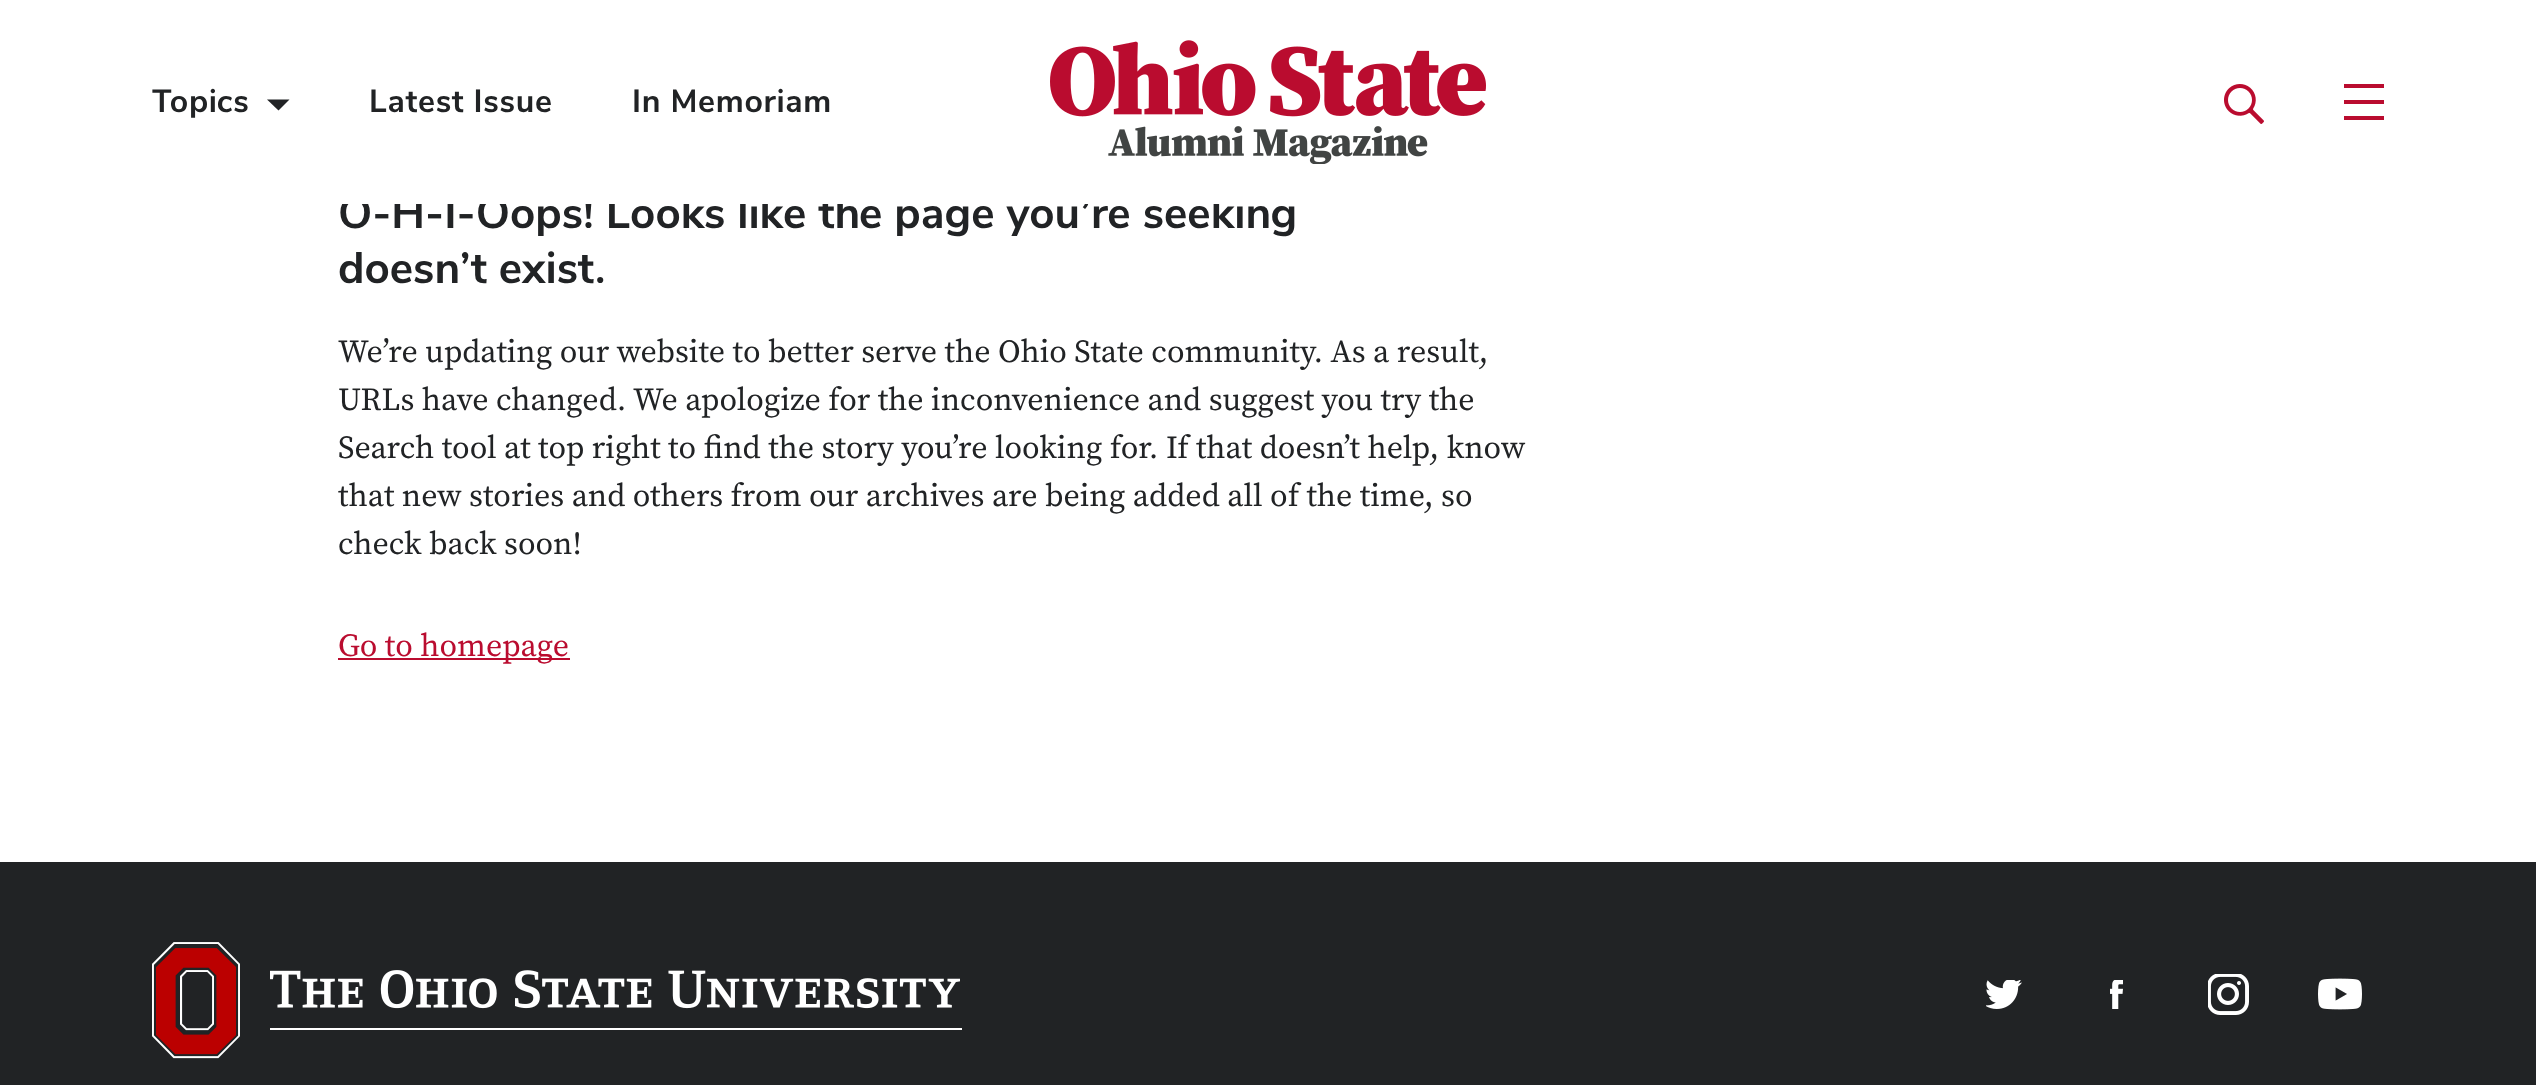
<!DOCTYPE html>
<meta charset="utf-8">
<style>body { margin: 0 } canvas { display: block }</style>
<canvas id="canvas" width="2536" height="1085"></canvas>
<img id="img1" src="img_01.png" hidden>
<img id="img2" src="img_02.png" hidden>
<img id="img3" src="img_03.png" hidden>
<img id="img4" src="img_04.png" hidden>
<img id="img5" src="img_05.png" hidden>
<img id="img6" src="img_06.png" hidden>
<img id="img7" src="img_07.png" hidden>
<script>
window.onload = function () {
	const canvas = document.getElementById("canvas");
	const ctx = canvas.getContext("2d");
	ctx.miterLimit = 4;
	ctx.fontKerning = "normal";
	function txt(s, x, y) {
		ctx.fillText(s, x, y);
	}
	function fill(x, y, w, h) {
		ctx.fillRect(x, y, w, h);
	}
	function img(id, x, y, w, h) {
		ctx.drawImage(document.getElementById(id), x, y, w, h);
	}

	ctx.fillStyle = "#FFFFFF";
	fill(0, 0, 2536, 1085);
	ctx.fillStyle = "#212325";
	ctx.beginPath();
	ctx.moveTo(289.5, 99.5);
	ctx.lineTo(267, 99.5);
	ctx.lineTo(278.5, 110.5);
	ctx.closePath();
	ctx.fill("evenodd");
	img("img1", 1050, 40, 436, 124);
	img("img2", 2224, 84, 40, 40);
	ctx.fillStyle = "#BA0C2F";
	fill(2344, 84, 40, 4);
	fill(2344, 100, 40, 4);
	fill(2344, 116, 40, 4);
	fill(338, 658, 232, 2);
	ctx.fillStyle = "#212325";
	fill(0, 862, 2536, 223);
	img("img3", 152, 942, 810, 117);
	img("img4", 1986, 980, 36, 29);
	img("img5", 2110, 980, 13, 29);
	img("img6", 2208, 974, 41, 41);
	img("img7", 2318, 978, 44, 32);
	ctx.letterSpacing = "0.7px";
	ctx.font = "bold 32px 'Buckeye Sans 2'";
	txt("Topics", 152, 112);
	txt("Latest Issue", 369, 112);
	txt("In Memoriam", 632, 112);
	ctx.letterSpacing = "0px";
	ctx.font = "bold 44px 'Buckeye Sans 2'";
	txt("O-H-I-Oops! Looks like the page you’re seeking", 338, 228);
	ctx.fillStyle = "#FFFFFF";
	fill(342, 196, 901, 8);
	ctx.fillStyle = "#212325";
	txt("doesn’t exist.", 338, 283);
	ctx.font = "32px 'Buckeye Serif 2'";
	txt("We’re updating our website to better serve the Ohio State community. As a result,", 338, 362);
	txt("URLs have changed. We apologize for the inconvenience and suggest you try the", 338, 410);
	txt("Search tool at top right to find the story you’re looking for. If that doesn’t help, know", 338, 458);
	txt("that new stories and others from our archives are being added all of the time, so", 338, 506);
	txt("check back soon!", 338, 554);
	ctx.fillStyle = "#BA0C2F";
	txt("Go to homepage", 338, 656);
};
</script>
